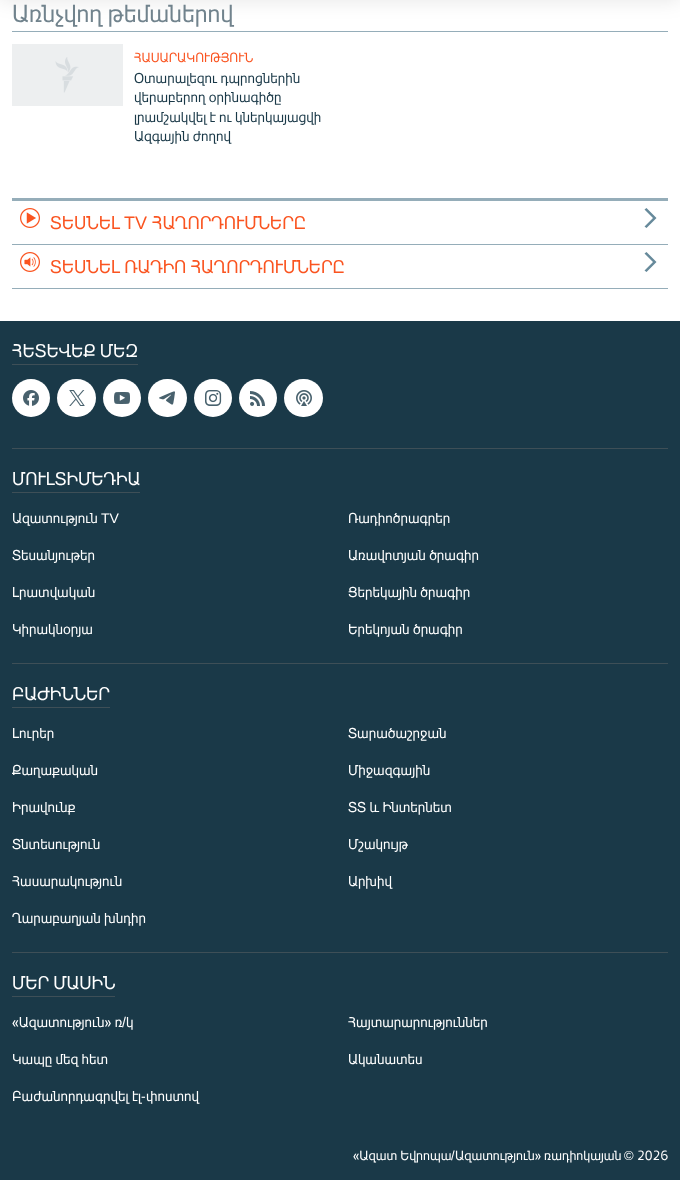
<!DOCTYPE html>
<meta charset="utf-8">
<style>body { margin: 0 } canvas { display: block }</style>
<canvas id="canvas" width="680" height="1180"></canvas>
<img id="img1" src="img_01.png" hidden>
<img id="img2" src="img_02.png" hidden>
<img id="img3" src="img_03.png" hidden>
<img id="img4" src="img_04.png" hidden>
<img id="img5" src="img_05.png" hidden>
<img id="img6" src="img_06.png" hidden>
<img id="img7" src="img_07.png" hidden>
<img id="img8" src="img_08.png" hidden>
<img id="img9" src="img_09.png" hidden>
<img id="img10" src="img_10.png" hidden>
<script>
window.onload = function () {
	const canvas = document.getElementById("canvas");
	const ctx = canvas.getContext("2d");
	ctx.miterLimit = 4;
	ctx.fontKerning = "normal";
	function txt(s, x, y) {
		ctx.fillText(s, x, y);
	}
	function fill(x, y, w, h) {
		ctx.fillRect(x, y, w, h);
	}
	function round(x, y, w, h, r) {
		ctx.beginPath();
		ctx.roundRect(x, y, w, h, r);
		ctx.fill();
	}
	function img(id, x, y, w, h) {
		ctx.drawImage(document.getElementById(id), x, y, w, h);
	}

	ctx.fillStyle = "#FFFFFF";
	fill(0, 0, 680, 1180);
	ctx.fillStyle = "rgba(0, 0, 0, 0.1)";
	ctx.filter = "blur(10px)";
	ctx.beginPath();
	ctx.rect(0, -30, 680, 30);
	ctx.fill();
	ctx.filter = "none";
	ctx.fillStyle = "#95ADB9";
	fill(12, 31, 656, 1);
	ctx.fillStyle = "#EDEFF0";
	fill(12, 44, 111, 62);
	img("img1", 55, 57, 24, 36);
	ctx.fillStyle = "#95ADB9";
	fill(12, 198, 656, 3);
	fill(12, 244, 656, 1);
	img("img2", 20, 208, 20, 20);
	ctx.fillStyle = "#678A9B";
	ctx.beginPath();
	ctx.moveTo(646.5, 228);
	ctx.lineTo(656.5, 218);
	ctx.lineTo(646.5, 208);
	ctx.lineTo(644.5, 209.5);
	ctx.lineTo(653, 218);
	ctx.lineTo(644.5, 226.5);
	ctx.closePath();
	ctx.fill();
	ctx.fillStyle = "#95ADB9";
	fill(12, 288, 656, 1);
	img("img3", 20, 252, 20, 20);
	ctx.fillStyle = "#678A9B";
	ctx.beginPath();
	ctx.moveTo(646.5, 272);
	ctx.lineTo(656.5, 262);
	ctx.lineTo(646.5, 252);
	ctx.lineTo(644.5, 253.5);
	ctx.lineTo(653, 262);
	ctx.lineTo(644.5, 270.5);
	ctx.closePath();
	ctx.fill();
	ctx.fillStyle = "#1A3948";
	fill(0, 321, 680, 859);
	ctx.fillStyle = "#3E4F57";
	fill(12, 364, 126, 1);
	ctx.fillStyle = "#FFFFFF";
	ctx.beginPath();
	ctx.arc(31, 398, 19, 0, Math.PI * 2);
	ctx.fill();
	img("img4", 23, 390, 16, 16);
	round(57, 379, 39, 38, 19);
	img("img5", 69, 390, 16, 16);
	ctx.beginPath();
	ctx.arc(122, 398, 19, 0, Math.PI * 2);
	ctx.fill();
	img("img6", 114, 392, 16, 12);
	round(148, 379, 39, 38, 19);
	img("img7", 159, 391, 16, 14);
	ctx.beginPath();
	ctx.arc(213, 398, 19, 0, Math.PI * 2);
	ctx.fill();
	img("img8", 205, 390, 17, 16);
	ctx.beginPath();
	ctx.arc(258, 398, 19, 0, Math.PI * 2);
	ctx.fill();
	img("img9", 250, 391, 15, 15);
	round(284, 379, 39, 38, 19);
	img("img10", 296, 390, 16, 16);
	ctx.fillStyle = "#3E4F57";
	fill(12, 448, 656, 1);
	fill(12, 492, 128, 1);
	fill(12, 663, 656, 1);
	fill(12, 707, 98, 1);
	fill(12, 952, 656, 1);
	fill(12, 996, 103, 1);
	ctx.font = "24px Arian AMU";
	ctx.fillStyle = "#71838D";
	txt("Առնչվող թեմաներով", 12, 22);
	ctx.font = "13px Arian AMU";
	ctx.fillStyle = "#FA5420";
	txt("ՀԱՍԱՐԱԿՈՒԹՅՈՒՆ", 134, 62);
	ctx.font = "14px Arian AMU";
	ctx.fillStyle = "#1A3948";
	txt("Օտարալեզու դպրոցներին", 134, 83);
	txt("վերաբերող օրինագիծը", 134, 102);
	txt("լրամշակվել է ու կներկայացվի", 134, 122);
	txt("Ազգային ժողով", 134, 141);
	ctx.font = "18px Arian AMU";
	ctx.fillStyle = "#FA5420";
	txt("ՏԵՍՆԵԼ", 50, 229);
	ctx.font = "18px Liberation Sans";
	txt("TV", 124, 229);
	ctx.font = "18px Arian AMU";
	txt("ՀԱՂՈՐԴՈՒՄՆԵՐԸ", 152, 229);
	txt("ՏԵՍՆԵԼ ՌԱԴԻՈ ՀԱՂՈՐԴՈՒՄՆԵՐԸ", 50, 273);
	ctx.fillStyle = "#FFFFFF";
	txt("ՀԵՏԵՎԵՔ ՄԵԶ", 12, 357);
	txt("ՄՈՒԼՏԻՄԵԴԻԱ", 12, 485);
	ctx.font = "14px Arian AMU";
	txt("Ազատություն", 12, 523);
	ctx.font = "14px Liberation Sans";
	txt("TV", 101, 523);
	ctx.font = "14px Arian AMU";
	txt("Ռադիոծրագրեր", 348, 523);
	txt("Տեսանյութեր", 12, 560);
	txt("Առավոտյան ծրագիր", 348, 560);
	txt("Լրատվական", 12, 597);
	txt("Ցերեկային ծրագիր", 348, 597);
	txt("Կիրակնօրյա", 12, 634);
	txt("Երեկոյան ծրագիր", 348, 634);
	ctx.font = "18px Arian AMU";
	txt("ԲԱԺԻՆՆԵՐ", 12, 700);
	ctx.font = "14px Arian AMU";
	txt("Լուրեր", 12, 738);
	txt("Տարածաշրջան", 348, 738);
	txt("Քաղաքական", 12, 775);
	txt("Միջազգային", 348, 775);
	txt("Իրավունք", 12, 812);
	txt("ՏՏ և Ինտերնետ", 348, 812);
	txt("Տնտեսություն", 12, 849);
	txt("Մշակույթ", 348, 849);
	txt("Հասարակություն", 12, 886);
	txt("Արխիվ", 348, 886);
	txt("Ղարաբաղյան խնդիր", 12, 923);
	ctx.font = "18px Arian AMU";
	txt("ՄԵՐ ՄԱՍԻՆ", 12, 989);
	ctx.font = "14px Arian AMU";
	txt("«Ազատություն» ռ", 12, 1027);
	ctx.font = "14px Liberation Sans";
	txt("/", 122, 1027);
	ctx.font = "14px Arian AMU";
	txt("կ", 126, 1027);
	txt("Հայտարարություններ", 348, 1027);
	txt("Կապը մեզ հետ", 12, 1064);
	txt("Ականատես", 348, 1064);
	txt("Բաժանորդագրվել էլ", 12, 1101);
	ctx.font = "14px Liberation Sans";
	txt("-", 141, 1101);
	ctx.font = "14px Arian AMU";
	txt("փոստով", 146, 1101);
	ctx.font = "13px Arian AMU";
	txt("«Ազատ Եվրոպա", 353, 1160);
	ctx.font = "13px Liberation Sans";
	txt("/", 451, 1160);
	ctx.font = "13px Arian AMU";
	txt("Ազատություն» ռադիոկայան", 455, 1160);
	ctx.font = "13px Liberation Sans";
	txt("©", 624, 1160);
	ctx.font = "13px Arian AMU";
	txt("2026", 637, 1160);
};
</script>
